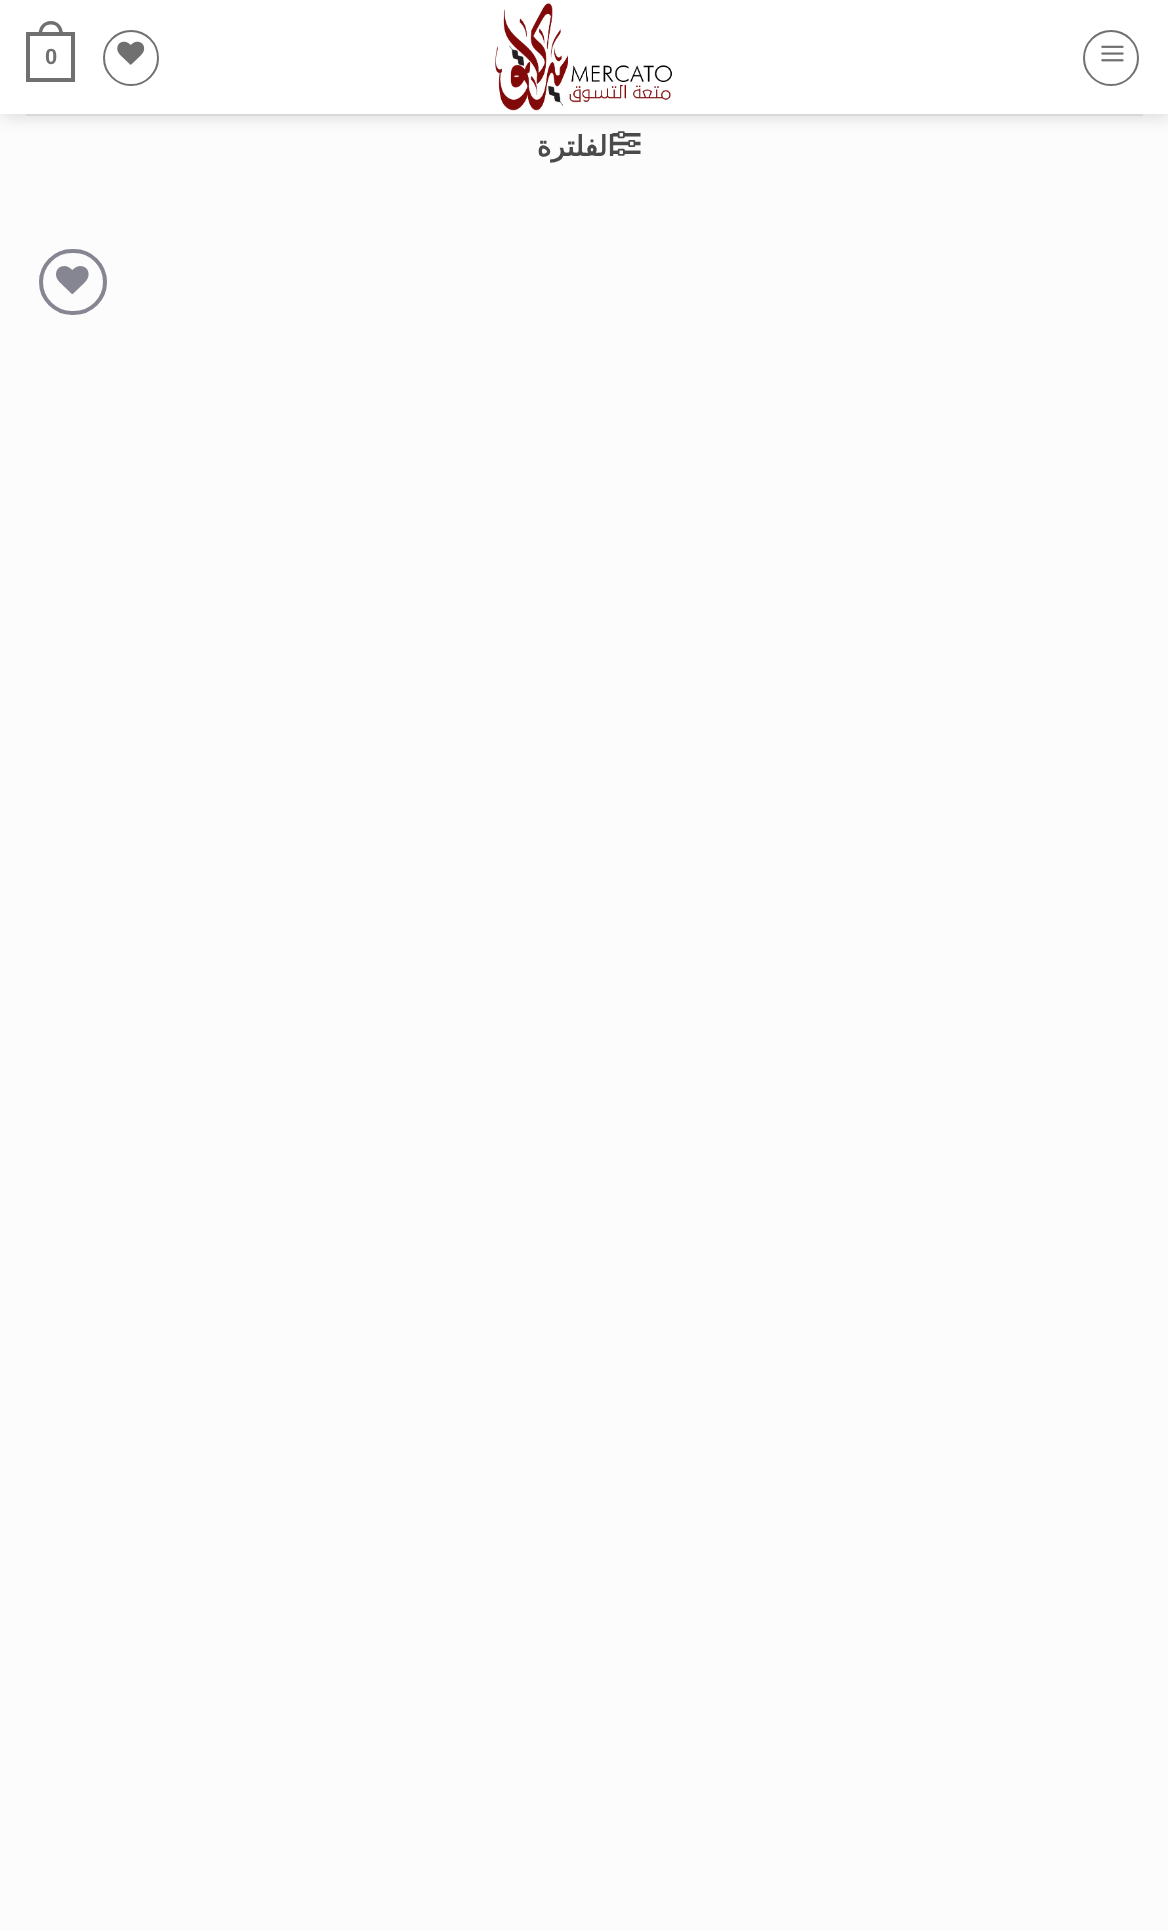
<!DOCTYPE html>
<meta charset="utf-8">
<style>body { margin: 0 } canvas { display: block }</style>
<canvas id="canvas" width="1168" height="1931"></canvas>
<img id="img1" src="img_04.png" hidden>
<img id="img2" src="img_01.png" hidden>
<img id="img3" src="img_02.png" hidden>
<img id="img4" src="img_03.png" hidden>
<img id="img5" src="img_05.png" hidden>
<script>
window.onload = function () {
	const canvas = document.getElementById("canvas");
	const ctx = canvas.getContext("2d");
	ctx.miterLimit = 4;
	ctx.fontKerning = "normal";
	function txt(s, x, y) {
		ctx.fillText(s, x, y);
	}
	function fill(x, y, w, h) {
		ctx.fillRect(x, y, w, h);
	}
	function img(id, x, y, w, h) {
		ctx.drawImage(document.getElementById(id), x, y, w, h);
	}

	ctx.fillStyle = "#FCFCFC";
	fill(0, 0, 1168, 1931);
	img("img1", 612, 131, 29, 25);
	ctx.save();
	ctx.beginPath();
	ctx.moveTo(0, 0);
	ctx.lineTo(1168, 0);
	ctx.lineTo(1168, 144);
	ctx.lineTo(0, 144);
	ctx.closePath();
	ctx.moveTo(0, 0);
	ctx.lineTo(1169, 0);
	ctx.lineTo(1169, 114);
	ctx.lineTo(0, 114);
	ctx.closePath();
	ctx.clip("evenodd");
	ctx.fillStyle = "rgba(0, 0, 0, 0.15)";
	ctx.filter = "blur(9px)";
	ctx.beginPath();
	ctx.rect(2, 2, 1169, 114);
	ctx.fill();
	ctx.filter = "none";
	ctx.restore();
	ctx.fillStyle = "rgba(255, 255, 255, 0.9)";
	fill(0, 0, 1168, 114);
	ctx.beginPath();
	ctx.arc(1111, 58, 27, 0, Math.PI * 2);
	ctx.strokeStyle = "#707070";
	ctx.lineWidth = 2;
	ctx.stroke();
	img("img2", 1101, 45, 23, 17);
	img("img3", 495, 3, 178, 108);
	ctx.beginPath();
	ctx.arc(131, 58, 27, 0, Math.PI * 2);
	ctx.stroke();
	img("img4", 117, 41, 28, 24);
	ctx.lineWidth = 4;
	ctx.strokeRect(28, 34, 45, 46);
	ctx.fillStyle = "#707070";
	ctx.beginPath();
	ctx.moveTo(51, 21);
	ctx.bezierCurveTo(59, 21, 63, 27.5, 63, 35);
	ctx.lineTo(38.5, 35);
	ctx.bezierCurveTo(38.5, 27.5, 42.5, 21, 51, 21);
	ctx.closePath();
	ctx.moveTo(51, 24.5);
	ctx.bezierCurveTo(57, 24.5, 59.5, 29.5, 59.5, 35);
	ctx.lineTo(42, 35);
	ctx.bezierCurveTo(42, 29.5, 44.5, 24.5, 51, 24.5);
	ctx.closePath();
	ctx.fill("evenodd");
	ctx.fillStyle = "#D8D8D8";
	fill(26, 114, 1117, 2);
	ctx.beginPath();
	ctx.roundRect(41, 251, 64, 62, 31);
	ctx.strokeStyle = "#858691";
	ctx.stroke();
	img("img5", 56, 266, 33, 28);
	ctx.font = "bold 22px Liberation Sans";
	ctx.fillStyle = "#707070";
	txt("0", 45, 64);
	ctx.letterSpacing = "1.5px";
	ctx.direction = "rtl";
	ctx.font = "bold 28px DejaVu Sans";
	ctx.fillStyle = "#4A4A4A";
	txt("الفلترة", 615, 156);
};
</script>
